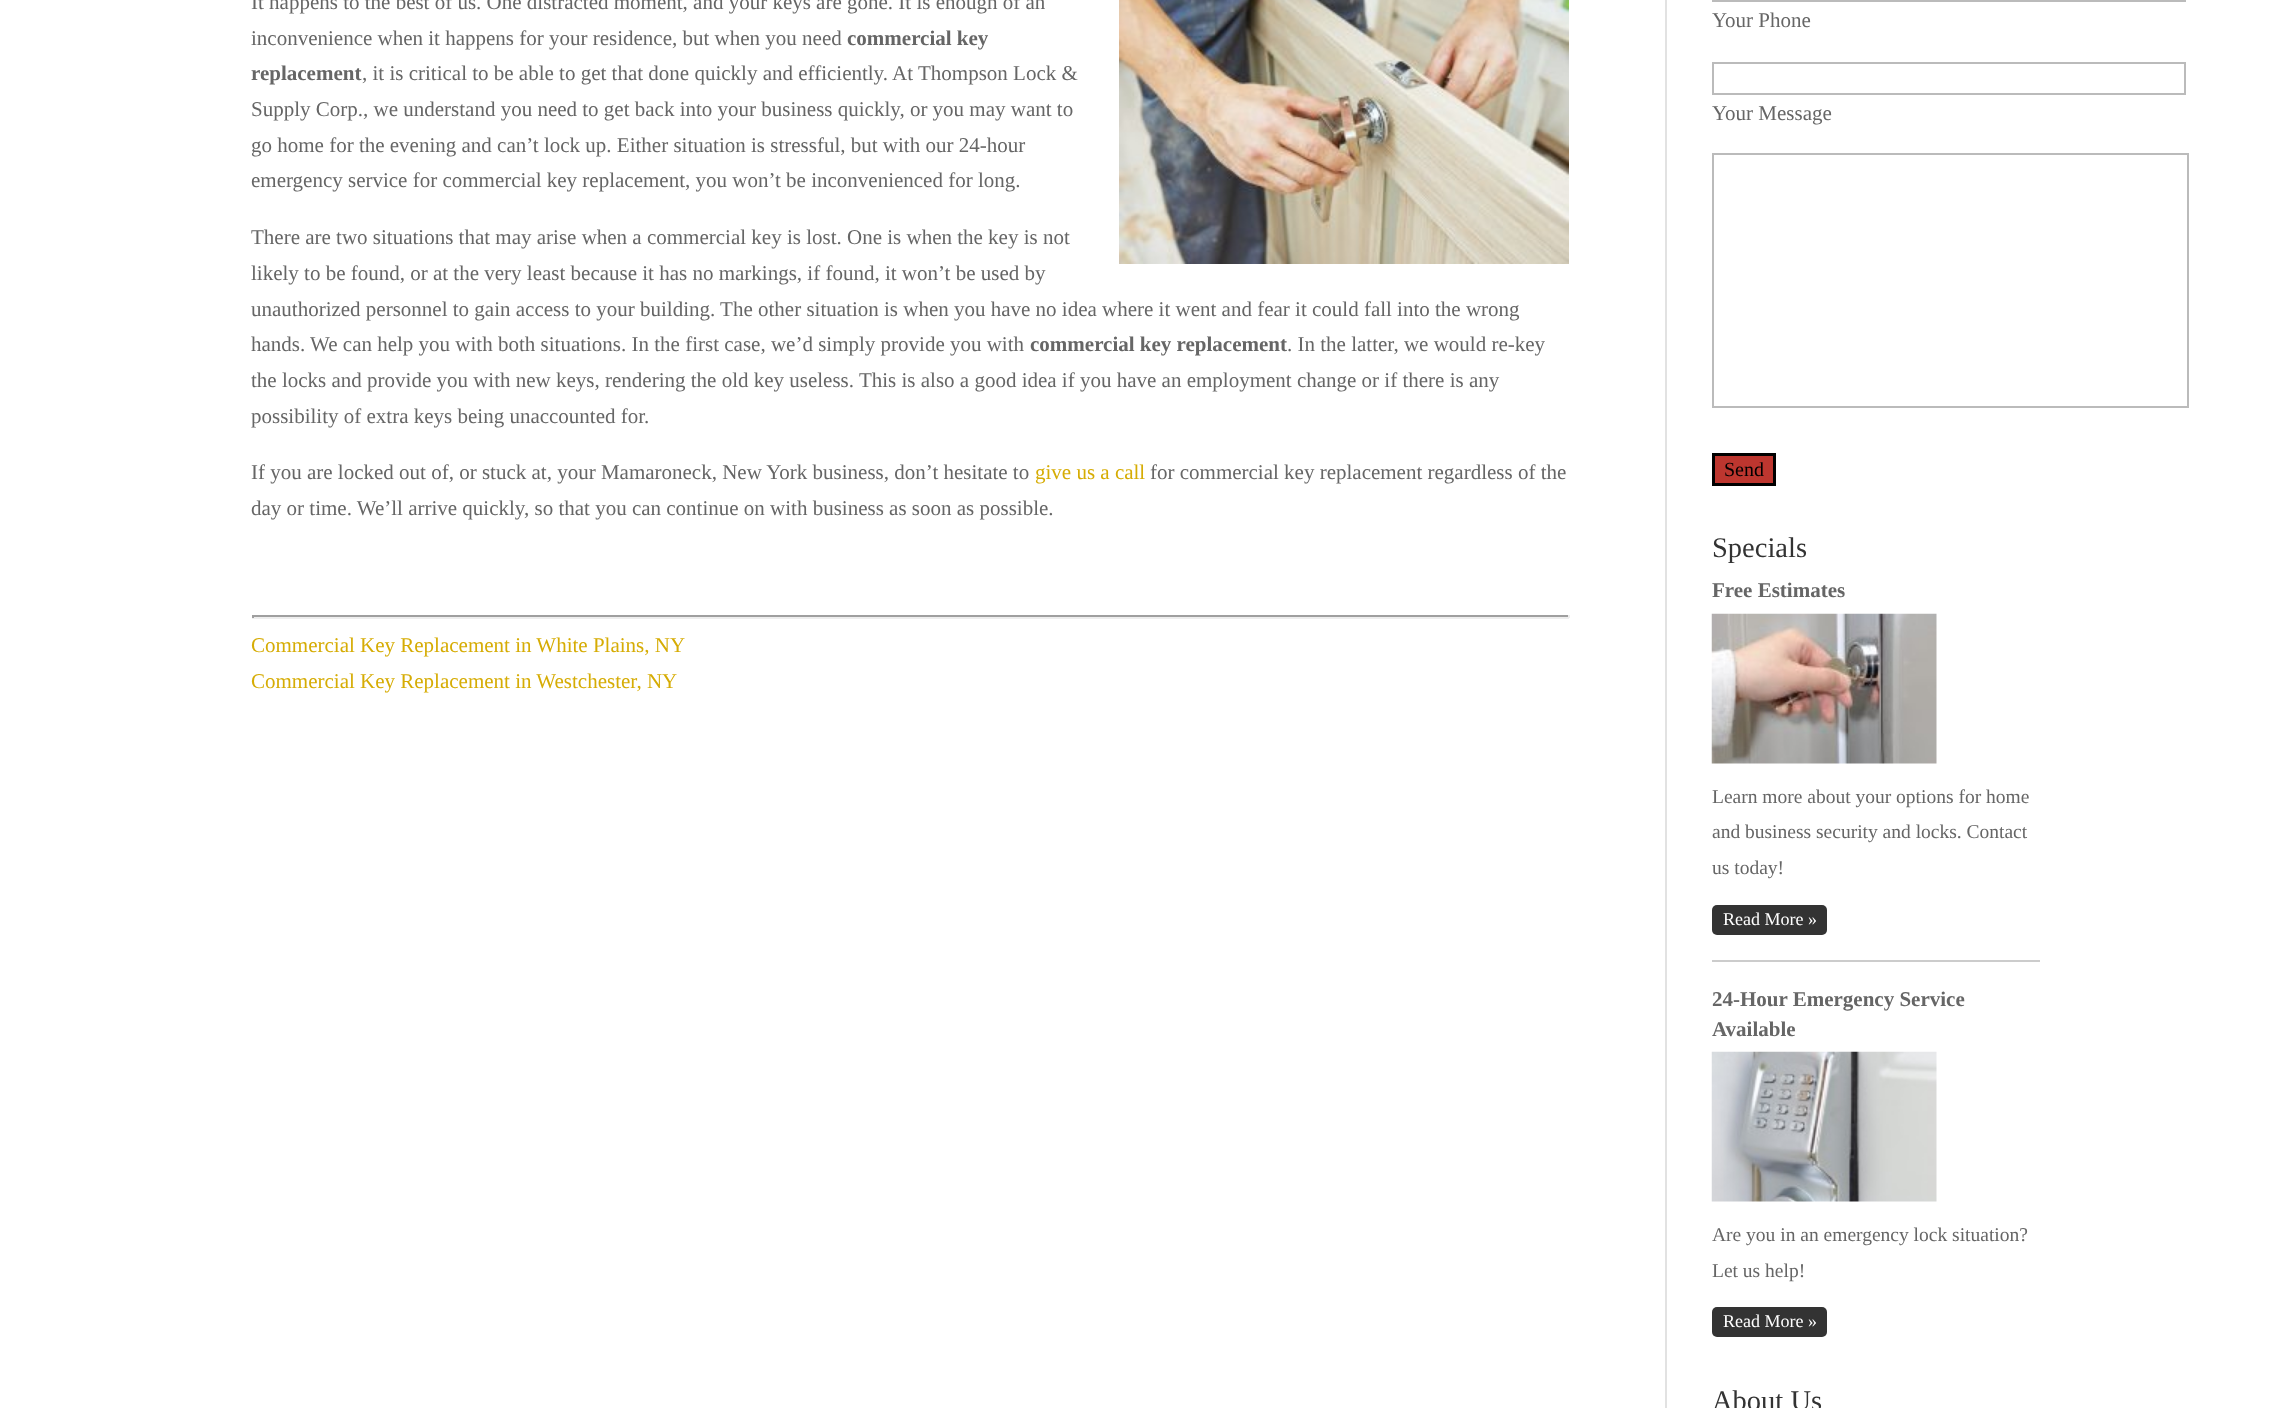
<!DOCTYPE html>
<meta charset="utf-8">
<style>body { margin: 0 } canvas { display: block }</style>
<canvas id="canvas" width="2291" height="1408"></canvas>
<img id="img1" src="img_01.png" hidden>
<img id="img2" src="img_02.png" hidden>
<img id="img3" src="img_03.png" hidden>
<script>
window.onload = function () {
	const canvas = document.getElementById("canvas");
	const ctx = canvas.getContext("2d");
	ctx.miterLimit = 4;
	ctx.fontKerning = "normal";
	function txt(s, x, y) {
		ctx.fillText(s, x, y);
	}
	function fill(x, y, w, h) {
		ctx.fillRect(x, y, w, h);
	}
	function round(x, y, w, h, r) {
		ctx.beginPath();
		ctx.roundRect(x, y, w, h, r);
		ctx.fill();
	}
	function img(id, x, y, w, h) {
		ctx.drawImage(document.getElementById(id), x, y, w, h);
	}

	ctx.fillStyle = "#FFFFFF";
	fill(0, 0, 2291, 1408);
	img("img1", 1119, 0, 450, 264);
	ctx.fillStyle = "#9F9F9F";
	fill(252, 615, 1317, 2);
	ctx.fillStyle = "#EEEEEE";
	fill(1568, 615, 2, 3);
	fill(252, 617, 1317, 2);
	ctx.fillStyle = "#9F9F9F";
	fill(252, 615, 2, 3);
	ctx.strokeStyle = "#BBBBBB";
	ctx.lineWidth = 2;
	ctx.strokeRect(1713, -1, 472, 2);
	ctx.strokeRect(1713, 63, 472, 31);
	ctx.strokeRect(1713, 154, 475, 253);
	ctx.fillStyle = "#BD362F";
	ctx.beginPath();
	ctx.rect(1713.5, 454.5, 61, 30);
	ctx.fill();
	ctx.strokeStyle = "#000000";
	ctx.lineWidth = 3;
	ctx.stroke();
	ctx.fillStyle = "#CCCCCC";
	fill(1712, 960, 328, 2);
	img("img2", 1711, 613, 226, 151);
	ctx.fillStyle = "#333333";
	round(1712, 905, 115, 30, 5);
	img("img3", 1711, 1051, 226, 151);
	round(1712, 1307, 115, 30, 5);
	ctx.fillStyle = "#E2E2E2";
	fill(1665, 0, 2, 1408);
	ctx.font = "21px Liberation Serif";
	ctx.fillStyle = "#666666";
	txt("It happens to the best of us. One distracted moment, and your keys are gone. It is enough of an", 251, 9);
	txt("inconvenience when it happens for your residence, but when you need", 251, 45);
	ctx.font = "bold 21px Liberation Serif";
	txt("commercial key", 847, 45);
	txt("replacement", 251, 80);
	ctx.font = "21px Liberation Serif";
	txt(", it is critical to be able to get that done quickly and efficiently. At Thompson Lock &", 362, 80);
	txt("Supply Corp., we understand you need to get back into your business quickly, or you may want to", 251, 116);
	txt("go home for the evening and can’t lock up. Either situation is stressful, but with our 24-hour", 251, 152);
	txt("emergency service for commercial key replacement, you won’t be inconvenienced for long.", 251, 187);
	txt("There are two situations that may arise when a commercial key is lost. One is when the key is not", 251, 244);
	txt("likely to be found, or at the very least because it has no markings, if found, it won’t be used by", 251, 280);
	txt("unauthorized personnel to gain access to your building. The other situation is when you have no idea where it went and fear it could fall into the wrong", 251, 316);
	txt("hands. We can help you with both situations. In the first case, we’d simply provide you with", 251, 351);
	ctx.font = "bold 21px Liberation Serif";
	txt("commercial key replacement", 1030, 351);
	ctx.font = "21px Liberation Serif";
	txt(". In the latter, we would re-key", 1287, 351);
	txt("the locks and provide you with new keys, rendering the old key useless. This is also a good idea if you have an employment change or if there is any", 251, 387);
	txt("possibility of extra keys being unaccounted for.", 251, 423);
	txt("If you are locked out of, or stuck at, your Mamaroneck, New York business, don’t hesitate to", 251, 479);
	ctx.fillStyle = "#D6AC04";
	txt("give us a call", 1035, 479);
	ctx.fillStyle = "#666666";
	txt("for commercial key replacement regardless of the", 1150, 479);
	txt("day or time. We’ll arrive quickly, so that you can continue on with business as soon as possible.", 251, 515);
	ctx.fillStyle = "#D6AC04";
	txt("Commercial Key Replacement in White Plains, NY", 251, 652);
	txt("Commercial Key Replacement in Westchester, NY", 251, 688);
	ctx.fillStyle = "#666666";
	txt("Your Phone", 1712, 27);
	txt("Your Message", 1712, 120);
	ctx.font = "20px Liberation Serif";
	ctx.fillStyle = "#000000";
	txt("Send", 1724, 476);
	ctx.font = "28.5px Liberation Serif";
	ctx.fillStyle = "#333333";
	txt("Specials", 1712, 557);
	ctx.font = "bold 21px Liberation Serif";
	ctx.fillStyle = "#666666";
	txt("Free Estimates", 1712, 597);
	ctx.font = "19.5px Liberation Serif";
	txt("Learn more about your options for home", 1712, 803);
	txt("and business security and locks. Contact", 1712, 838);
	txt("us today!", 1712, 874);
	ctx.font = "18px Liberation Serif";
	ctx.fillStyle = "#FFFFFF";
	txt("Read More »", 1723, 925);
	ctx.font = "bold 21px Liberation Serif";
	ctx.fillStyle = "#666666";
	txt("24-Hour Emergency Service", 1712, 1006);
	txt("Available", 1712, 1036);
	ctx.font = "19.5px Liberation Serif";
	txt("Are you in an emergency lock situation?", 1712, 1241);
	txt("Let us help!", 1712, 1277);
	ctx.font = "18px Liberation Serif";
	ctx.fillStyle = "#FFFFFF";
	txt("Read More »", 1723, 1327);
	ctx.font = "28.5px Liberation Serif";
	ctx.fillStyle = "#333333";
	txt("About Us", 1712, 1410);
};
</script>
